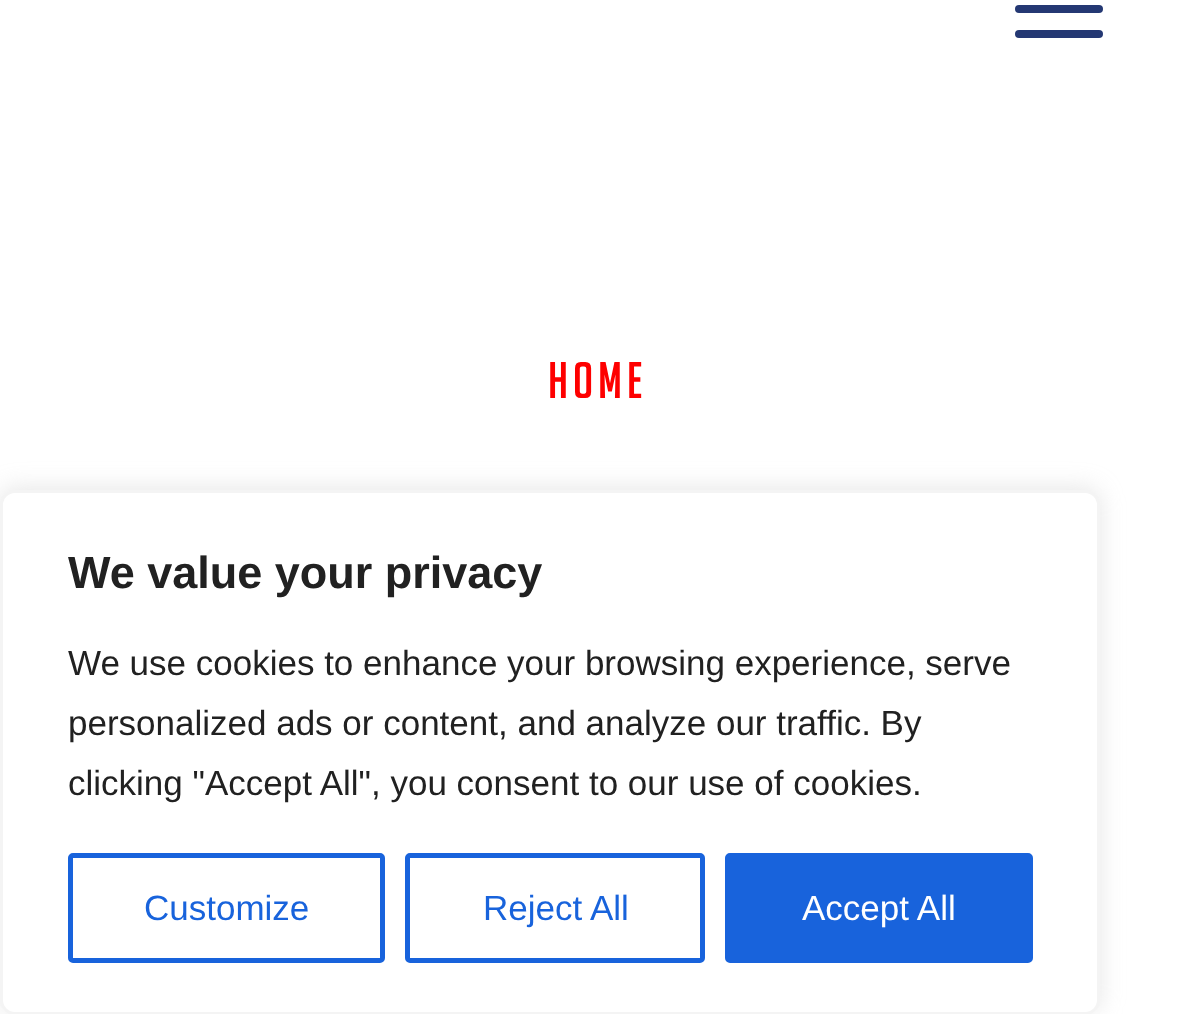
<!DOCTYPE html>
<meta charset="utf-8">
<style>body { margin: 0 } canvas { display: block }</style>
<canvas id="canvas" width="1192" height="1014"></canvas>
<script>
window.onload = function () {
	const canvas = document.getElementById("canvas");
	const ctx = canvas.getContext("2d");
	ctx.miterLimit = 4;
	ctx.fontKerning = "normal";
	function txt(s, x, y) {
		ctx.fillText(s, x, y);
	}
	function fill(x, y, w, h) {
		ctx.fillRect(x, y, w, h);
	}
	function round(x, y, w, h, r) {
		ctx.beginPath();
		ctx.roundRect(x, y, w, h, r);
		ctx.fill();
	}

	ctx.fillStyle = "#FFFFFF";
	fill(0, 0, 1192, 1014);
	ctx.fillStyle = "#243873";
	round(1015, 5, 88, 8, 4);
	round(1015, 30, 88, 8, 4);
	ctx.fillStyle = "rgba(172, 171, 171, 0.3)";
	ctx.filter = "blur(12.5px)";
	ctx.beginPath();
	ctx.roundRect(0, 488, 1100, 525, 15);
	ctx.fill();
	ctx.filter = "none";
	ctx.fillStyle = "#FFFFFF";
	ctx.beginPath();
	ctx.roundRect(1.5, 491.5, 1097, 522, 13.5);
	ctx.fill();
	ctx.strokeStyle = "#F4F4F4";
	ctx.lineWidth = 3;
	ctx.stroke();
	ctx.beginPath();
	ctx.roundRect(70.5, 855.5, 312, 105, 2.5);
	ctx.strokeStyle = "#1863DC";
	ctx.lineWidth = 5;
	ctx.stroke();
	ctx.beginPath();
	ctx.roundRect(407.5, 855.5, 295, 105, 2.5);
	ctx.stroke();
	ctx.fillStyle = "#1863DC";
	ctx.beginPath();
	ctx.roundRect(727.5, 855.5, 303, 105, 2.5);
	ctx.fill();
	ctx.stroke();
	ctx.letterSpacing = "5px";
	ctx.font = "50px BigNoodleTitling";
	ctx.fillStyle = "#FE0000";
	txt("Home", 548, 398);
	ctx.letterSpacing = "0px";
	ctx.font = "bold 45px Liberation Sans";
	ctx.fillStyle = "#212121";
	txt("We value your privacy", 68, 588);
	ctx.font = "35px Liberation Sans";
	txt("We use cookies to enhance your browsing experience, serve", 68, 675);
	txt("personalized ads or content, and analyze our traffic. By", 68, 735);
	txt("clicking \"Accept All\", you consent to our use of cookies.", 68, 795);
	ctx.fillStyle = "#1863DC";
	txt("Customize", 144, 920);
	txt("Reject All", 483, 920);
	ctx.fillStyle = "#FFFFFF";
	txt("Accept All", 802, 920);
};
</script>
